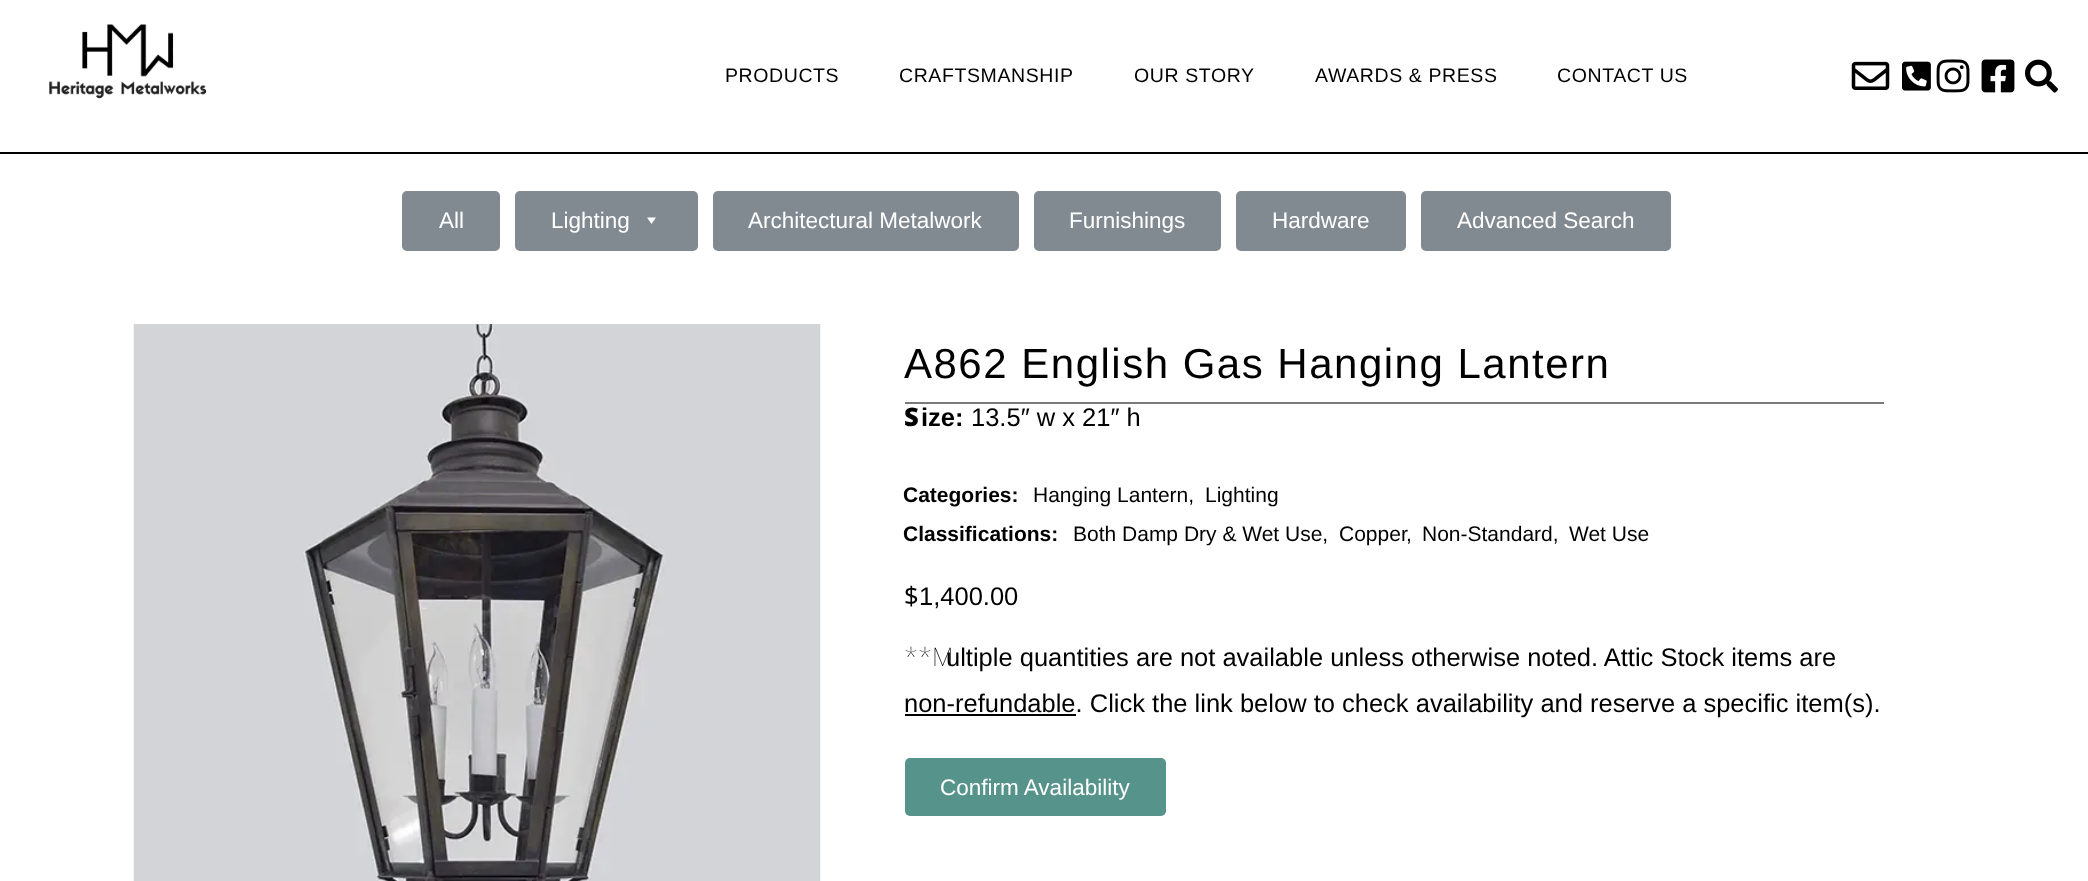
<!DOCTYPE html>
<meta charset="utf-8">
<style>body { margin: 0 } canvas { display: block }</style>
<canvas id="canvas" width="2088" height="881"></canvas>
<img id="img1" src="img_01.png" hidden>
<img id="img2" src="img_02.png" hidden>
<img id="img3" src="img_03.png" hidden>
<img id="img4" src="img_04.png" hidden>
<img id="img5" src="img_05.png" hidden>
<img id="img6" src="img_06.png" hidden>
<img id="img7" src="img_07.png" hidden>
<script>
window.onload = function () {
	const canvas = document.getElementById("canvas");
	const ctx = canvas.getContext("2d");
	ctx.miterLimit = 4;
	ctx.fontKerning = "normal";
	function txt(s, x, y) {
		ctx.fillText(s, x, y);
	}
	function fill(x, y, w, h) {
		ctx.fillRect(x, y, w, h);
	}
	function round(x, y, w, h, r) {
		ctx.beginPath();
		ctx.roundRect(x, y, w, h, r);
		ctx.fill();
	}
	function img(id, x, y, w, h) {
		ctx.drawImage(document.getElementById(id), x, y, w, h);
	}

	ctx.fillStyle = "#FFFFFF";
	fill(0, 0, 2088, 881);
	ctx.fillStyle = "#000000";
	fill(0, 152, 2088, 2);
	img("img1", 49, 24, 158, 75);
	img("img2", 1851, 61, 39, 29);
	img("img3", 1902, 61, 29, 30);
	img("img4", 1936, 59, 34, 34);
	img("img5", 1981, 59, 34, 34);
	img("img6", 2025, 59, 33, 34);
	ctx.fillStyle = "#818A91";
	round(402, 191, 98, 60, 5);
	round(515, 191, 183, 60, 5);
	ctx.fillStyle = "#FFFFFF";
	ctx.beginPath();
	ctx.moveTo(656, 217.5);
	ctx.lineTo(651.5, 224);
	ctx.lineTo(647, 217.5);
	ctx.closePath();
	ctx.fill();
	ctx.fillStyle = "#818A91";
	round(713, 191, 306, 60, 5);
	round(1034, 191, 187, 60, 5);
	round(1236, 191, 170, 60, 5);
	round(1421, 191, 250, 60, 5);
	img("img7", 133, 324, 688, 557);
	ctx.fillStyle = "#7A7A7A";
	fill(905, 402, 979, 2);
	ctx.fillStyle = "#000000";
	fill(905, 714, 171, 2);
	ctx.fillStyle = "#56938B";
	round(905, 758, 261, 58, 5);
	ctx.letterSpacing = "0.6px";
	ctx.font = "19.5px Liberation Sans";
	ctx.fillStyle = "#000000";
	txt("PRODUCTS", 725, 82);
	txt("CRAFTSMANSHIP", 899, 82);
	txt("OUR STORY", 1134, 82);
	txt("AWARDS & PRESS", 1315, 82);
	txt("CONTACT US", 1557, 82);
	ctx.letterSpacing = "0px";
	ctx.font = "22.5px Liberation Sans";
	ctx.fillStyle = "#FFFFFF";
	txt("All", 439, 228);
	txt("Lighting", 551, 228);
	txt("Architectural Metalwork", 748, 228);
	txt("Furnishings", 1069, 228);
	txt("Hardware", 1272, 228);
	txt("Advanced Search", 1457, 228);
	ctx.letterSpacing = "1.5px";
	ctx.font = "42px Liberation Sans";
	ctx.fillStyle = "#000000";
	txt("A862 English Gas Hanging Lantern", 904, 378);
	ctx.letterSpacing = "0px";
	ctx.font = "900 25.5px Noto Sans";
	txt("S", 904, 426);
	ctx.font = "bold 25.5px Liberation Sans";
	txt("ize:", 921, 426);
	ctx.font = "25.5px Liberation Sans";
	txt("13.5″ w x 21″ h", 971, 426);
	ctx.font = "bold 21px Liberation Sans";
	txt("Categories:", 903, 502);
	ctx.font = "21px Liberation Sans";
	txt("Hanging Lantern,", 1033, 502);
	txt("Lighting", 1205, 502);
	ctx.font = "bold 21px Liberation Sans";
	txt("Classifications:", 903, 541);
	ctx.font = "21px Liberation Sans";
	txt("Both Damp Dry & Wet Use,", 1073, 541);
	txt("Copper", 1339, 541);
	txt(",", 1406, 541);
	txt("Non-Standard,", 1422, 541);
	txt("Wet Use", 1569, 541);
	ctx.font = "25.5px Noto Sans";
	txt("$", 904, 605);
	ctx.font = "25.5px Liberation Sans";
	txt("1,400.00", 919, 605);
	ctx.font = "100 25.5px Noto Sans";
	txt("**M", 904, 666);
	ctx.font = "25.5px Liberation Sans";
	txt("ultiple quantities are not available unless otherwise noted. Attic Stock items are", 946, 666);
	txt("non-refundable. Click the link below to check availability and reserve a specific item(s).", 904, 712);
	ctx.font = "22.5px Liberation Sans";
	ctx.fillStyle = "#FFFFFF";
	txt("Confirm Availability", 940, 795);
};
</script>
